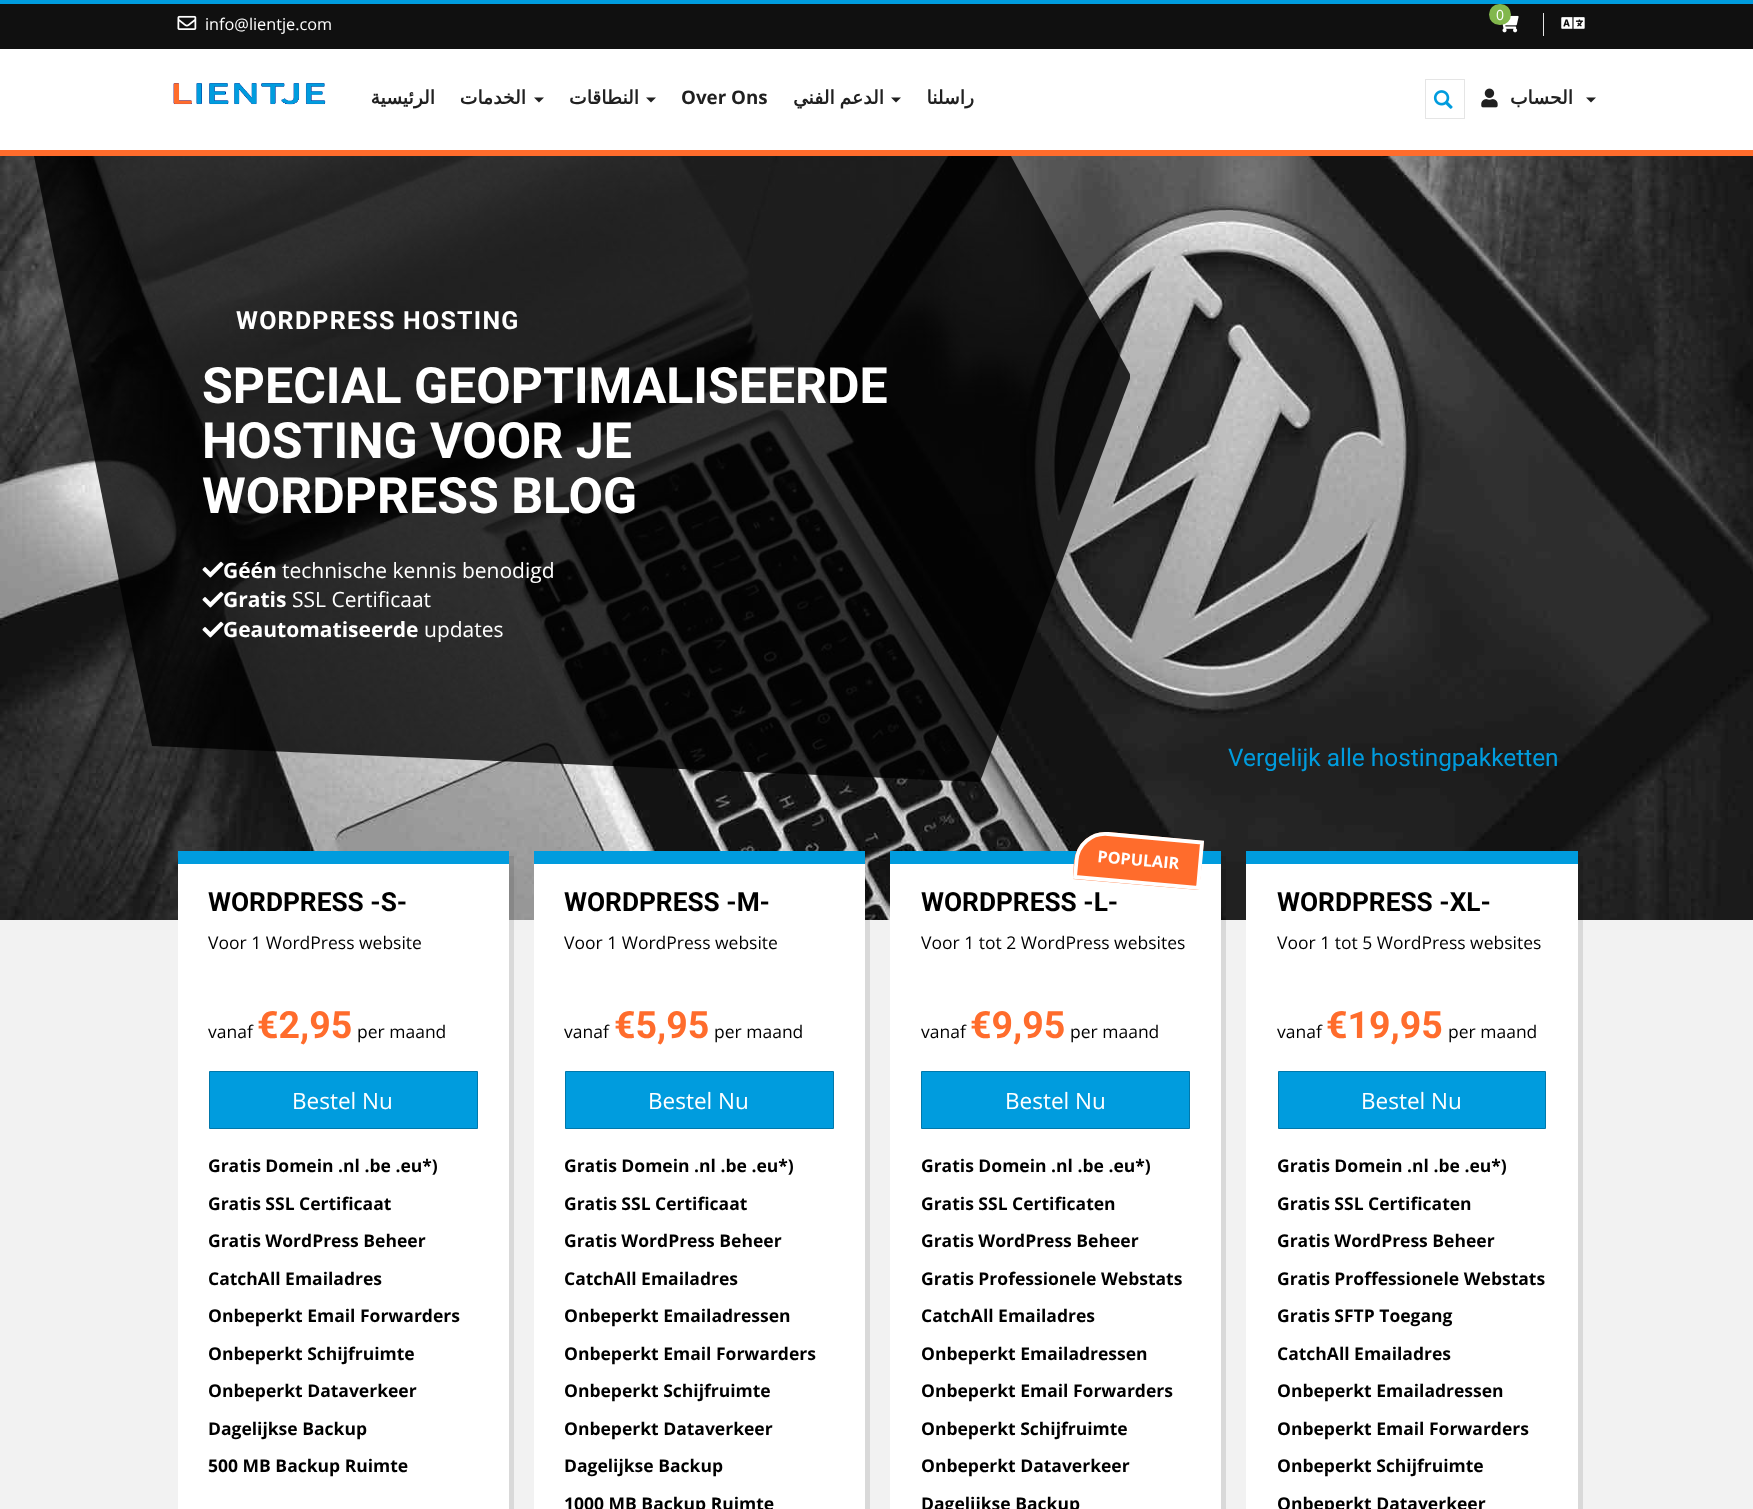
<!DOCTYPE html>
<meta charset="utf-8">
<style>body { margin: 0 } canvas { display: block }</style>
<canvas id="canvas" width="1753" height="1509"></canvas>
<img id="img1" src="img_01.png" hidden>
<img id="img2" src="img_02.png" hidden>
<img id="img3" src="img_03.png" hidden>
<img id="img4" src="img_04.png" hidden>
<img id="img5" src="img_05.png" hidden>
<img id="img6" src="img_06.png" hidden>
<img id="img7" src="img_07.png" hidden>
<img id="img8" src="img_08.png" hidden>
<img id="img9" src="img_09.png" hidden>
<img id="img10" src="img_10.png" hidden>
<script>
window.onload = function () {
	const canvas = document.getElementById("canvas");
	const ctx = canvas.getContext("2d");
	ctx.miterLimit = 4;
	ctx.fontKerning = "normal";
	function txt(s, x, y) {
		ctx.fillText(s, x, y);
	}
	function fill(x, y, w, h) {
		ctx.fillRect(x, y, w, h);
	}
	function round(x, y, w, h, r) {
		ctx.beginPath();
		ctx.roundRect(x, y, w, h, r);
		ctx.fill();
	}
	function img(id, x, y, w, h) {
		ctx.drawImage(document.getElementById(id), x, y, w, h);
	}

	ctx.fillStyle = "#FFFFFF";
	fill(0, 0, 1753, 1509);
	ctx.fillStyle = "#009CDE";
	fill(0, 0, 1753, 4);
	ctx.fillStyle = "#101010";
	fill(0, 4, 1753, 45);
	ctx.fillStyle = "#E5E5E5";
	fill(1543, 13, 1, 23);
	img("img1", 1502, 15, 17, 18);
	ctx.fillStyle = "#82B74C";
	round(1489, 4, 22, 21, 10.5);
	img("img2", 1561, 17, 24, 12);
	img("img3", 177, 15, 20, 15);
	ctx.fillStyle = "#202020";
	ctx.beginPath();
	ctx.moveTo(534, 97.5);
	ctx.lineTo(544, 97.5);
	ctx.lineTo(539, 102.5);
	ctx.closePath();
	ctx.fill();
	ctx.beginPath();
	ctx.moveTo(646, 97.5);
	ctx.lineTo(656, 97.5);
	ctx.lineTo(651, 102.5);
	ctx.closePath();
	ctx.fill();
	ctx.beginPath();
	ctx.moveTo(891, 97.5);
	ctx.lineTo(901, 97.5);
	ctx.lineTo(896, 102.5);
	ctx.closePath();
	ctx.fill();
	img("img4", 173, 83, 153, 22);
	ctx.strokeStyle = "#E5E5E5";
	ctx.strokeRect(1425.5, 79.5, 39, 39);
	img("img5", 1433, 90, 20, 19);
	img("img6", 1481, 88, 17, 20);
	ctx.beginPath();
	ctx.moveTo(1586, 97.5);
	ctx.lineTo(1596, 97.5);
	ctx.lineTo(1591, 102.5);
	ctx.closePath();
	ctx.fill();
	img("img7", 0, 156, 1753, 764);
	ctx.fillStyle = "#FF6C2C";
	fill(0, 150, 1753, 6);
	ctx.save();
	ctx.beginPath();
	ctx.rect(34, 156, 1096, 627);
	ctx.clip();
	ctx.fillStyle = "rgba(0, 0, 0, 0.8)";
	ctx.beginPath();
	ctx.moveTo(34, 156);
	ctx.lineTo(1011, 156);
	ctx.lineTo(1131, 376);
	ctx.lineTo(980, 782);
	ctx.lineTo(152, 746);
	ctx.closePath();
	ctx.fill();
	ctx.restore();
	img("img8", 202, 561, 22, 17);
	img("img9", 202, 591, 22, 17);
	img("img10", 202, 621, 22, 17);
	ctx.fillStyle = "#F2F2F2";
	fill(0, 920, 1753, 589);
	ctx.fillStyle = "rgba(0, 0, 0, 0.1)";
	ctx.beginPath();
	ctx.moveTo(183, 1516);
	ctx.lineTo(183, 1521);
	ctx.lineTo(514, 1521);
	ctx.lineTo(514, 856);
	ctx.lineTo(509, 856);
	ctx.lineTo(509, 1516);
	ctx.closePath();
	ctx.fill();
	ctx.fillStyle = "#FFFFFF";
	fill(178, 864, 331, 645);
	ctx.fillStyle = "#009CDE";
	fill(178, 851, 331, 13);
	ctx.beginPath();
	ctx.rect(209.5, 1071.5, 268, 57);
	ctx.fill();
	ctx.strokeStyle = "#0078AB";
	ctx.stroke();
	ctx.fillStyle = "rgba(0, 0, 0, 0.1)";
	ctx.beginPath();
	ctx.moveTo(539, 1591);
	ctx.lineTo(539, 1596);
	ctx.lineTo(870, 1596);
	ctx.lineTo(870, 856);
	ctx.lineTo(865, 856);
	ctx.lineTo(865, 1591);
	ctx.closePath();
	ctx.fill();
	ctx.fillStyle = "#FFFFFF";
	fill(534, 864, 331, 645);
	ctx.fillStyle = "#009CDE";
	fill(534, 851, 331, 13);
	ctx.beginPath();
	ctx.rect(565.5, 1071.5, 268, 57);
	ctx.fill();
	ctx.stroke();
	ctx.fillStyle = "rgba(0, 0, 0, 0.1)";
	ctx.beginPath();
	ctx.moveTo(895, 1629);
	ctx.lineTo(895, 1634);
	ctx.lineTo(1226, 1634);
	ctx.lineTo(1226, 856);
	ctx.lineTo(1221, 856);
	ctx.lineTo(1221, 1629);
	ctx.closePath();
	ctx.fill();
	ctx.fillStyle = "#FFFFFF";
	fill(890, 864, 331, 645);
	ctx.fillStyle = "#009CDE";
	fill(890, 851, 331, 13);
	ctx.fillStyle = "#FF6C2C";
	ctx.beginPath();
	ctx.moveTo(1108, 832);
	ctx.lineTo(1204, 841);
	ctx.lineTo(1199, 890);
	ctx.lineTo(1073, 879);
	ctx.lineTo(1074, 861);
	ctx.bezierCurveTo(1076, 843, 1091, 831, 1108, 832);
	ctx.closePath();
	ctx.fill();
	ctx.beginPath();
	ctx.moveTo(1108, 834);
	ctx.lineTo(1202, 842.5);
	ctx.lineTo(1198, 888);
	ctx.lineTo(1075, 877);
	ctx.lineTo(1076.5, 861);
	ctx.bezierCurveTo(1077.5, 844.5, 1092, 832.5, 1108, 834);
	ctx.closePath();
	ctx.strokeStyle = "#FFFFFF";
	ctx.lineWidth = 3.8;
	ctx.stroke();
	ctx.fillStyle = "#009CDE";
	ctx.beginPath();
	ctx.rect(921.5, 1071.5, 268, 57);
	ctx.fill();
	ctx.strokeStyle = "#0078AB";
	ctx.lineWidth = 1;
	ctx.stroke();
	ctx.fillStyle = "rgba(0, 0, 0, 0.1)";
	ctx.beginPath();
	ctx.moveTo(1251, 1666);
	ctx.lineTo(1251, 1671);
	ctx.lineTo(1583, 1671);
	ctx.lineTo(1583, 856);
	ctx.lineTo(1578, 856);
	ctx.lineTo(1578, 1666);
	ctx.closePath();
	ctx.fill();
	ctx.fillStyle = "#FFFFFF";
	fill(1246, 864, 332, 645);
	ctx.fillStyle = "#009CDE";
	fill(1246, 851, 332, 13);
	ctx.beginPath();
	ctx.rect(1278.5, 1071.5, 267, 57);
	ctx.fill();
	ctx.stroke();
	ctx.font = "14px Open Sans";
	ctx.fillStyle = "#FFFFFF";
	txt("0", 1496, 20);
	ctx.font = "16.25px Open Sans";
	txt("info@lientje.com", 205, 30);
	ctx.direction = "rtl";
	ctx.font = "bold 18.75px DejaVu Sans";
	ctx.fillStyle = "#202020";
	txt("الرئيسية", 435, 104);
	txt("الخدمات", 526, 104);
	txt("النطاقات", 639, 104);
	ctx.direction = "ltr";
	ctx.font = "bold 18.75px Open Sans";
	txt("Over Ons", 681, 104);
	ctx.wordSpacing = "-1px";
	ctx.direction = "rtl";
	ctx.font = "bold 18.75px DejaVu Sans";
	txt("الدعم الفني", 884, 104);
	ctx.wordSpacing = "0px";
	txt("راسلنا", 974, 104);
	txt("الحساب", 1573, 104);
	ctx.letterSpacing = "1.25px";
	ctx.direction = "ltr";
	ctx.font = "bold 25px Roboto";
	ctx.fillStyle = "#FFFFFF";
	txt("WORDPRESS HOSTING", 236, 329);
	ctx.letterSpacing = "0px";
	ctx.font = "bold 50px Roboto";
	txt("SPECIAL GEOPTIMALISEERDE", 202, 403);
	txt("HOSTING VOOR JE", 202, 458);
	txt("WORDPRESS BLOG", 202, 513);
	ctx.font = "bold 21px Open Sans";
	txt("Géén", 223, 578);
	ctx.font = "21px Open Sans";
	txt("technische kennis benodigd", 282, 578);
	ctx.font = "bold 21px Open Sans";
	txt("Gratis", 223, 607);
	ctx.font = "21px Open Sans";
	txt("SSL Certificaat", 292, 607);
	ctx.font = "bold 21px Open Sans";
	txt("Geautomatiseerde", 223, 637);
	ctx.font = "21px Open Sans";
	txt("updates", 424, 637);
	ctx.font = "24.4px Roboto";
	ctx.fillStyle = "#009CDE";
	txt("Vergelijk alle hostingpakketten", 1228, 766);
	ctx.font = "bold 26.25px Roboto";
	ctx.fillStyle = "#000000";
	txt("WORDPRESS -S-", 208, 911);
	ctx.font = "17.5px Open Sans";
	txt("Voor 1 WordPress website", 208, 949);
	txt("vanaf", 208, 1038);
	ctx.font = "bold 37.5px Roboto";
	ctx.fillStyle = "#FF6C2C";
	txt("€2,95", 257, 1038);
	ctx.font = "17.5px Open Sans";
	ctx.fillStyle = "#000000";
	txt("per maand", 357, 1038);
	ctx.font = "22.5px Open Sans";
	ctx.fillStyle = "#FFFFFF";
	txt("Bestel Nu", 292, 1109);
	ctx.font = "bold 17.5px Open Sans";
	ctx.fillStyle = "#000000";
	txt("Gratis Domein .nl .be .eu*)", 208, 1172);
	txt("Gratis SSL Certificaat", 208, 1210);
	txt("Gratis WordPress Beheer", 208, 1247);
	txt("CatchAll Emailadres", 208, 1285);
	txt("Onbeperkt Email Forwarders", 208, 1322);
	txt("Onbeperkt Schijfruimte", 208, 1360);
	txt("Onbeperkt Dataverkeer", 208, 1397);
	txt("Dagelijkse Backup", 208, 1435);
	txt("500 MB Backup Ruimte", 208, 1472);
	ctx.font = "bold 26.25px Roboto";
	txt("WORDPRESS -M-", 564, 911);
	ctx.font = "17.5px Open Sans";
	txt("Voor 1 WordPress website", 564, 949);
	txt("vanaf", 564, 1038);
	ctx.font = "bold 37.5px Roboto";
	ctx.fillStyle = "#FF6C2C";
	txt("€5,95", 614, 1038);
	ctx.font = "17.5px Open Sans";
	ctx.fillStyle = "#000000";
	txt("per maand", 714, 1038);
	ctx.font = "22.5px Open Sans";
	ctx.fillStyle = "#FFFFFF";
	txt("Bestel Nu", 648, 1109);
	ctx.font = "bold 17.5px Open Sans";
	ctx.fillStyle = "#000000";
	txt("Gratis Domein .nl .be .eu*)", 564, 1172);
	txt("Gratis SSL Certificaat", 564, 1210);
	txt("Gratis WordPress Beheer", 564, 1247);
	txt("CatchAll Emailadres", 564, 1285);
	txt("Onbeperkt Emailadressen", 564, 1322);
	txt("Onbeperkt Email Forwarders", 564, 1360);
	txt("Onbeperkt Schijfruimte", 564, 1397);
	txt("Onbeperkt Dataverkeer", 564, 1435);
	txt("Dagelijkse Backup", 564, 1472);
	txt("1000 MB Backup Ruimte", 564, 1510);
	ctx.font = "bold 16.25px Open Sans";
	ctx.fillStyle = "#FFFFFF";
	ctx.save();
	ctx.translate(1097, 862);
	ctx.rotate(5 * Math.PI / 180);
	ctx.fillText("POPULAIR", 0, 0);
	ctx.restore();
	ctx.font = "bold 26.25px Roboto";
	ctx.fillStyle = "#000000";
	txt("WORDPRESS -L-", 921, 911);
	ctx.font = "17.5px Open Sans";
	txt("Voor 1 tot 2 WordPress websites", 921, 949);
	txt("vanaf", 921, 1038);
	ctx.font = "bold 37.5px Roboto";
	ctx.fillStyle = "#FF6C2C";
	txt("€9,95", 970, 1038);
	ctx.font = "17.5px Open Sans";
	ctx.fillStyle = "#000000";
	txt("per maand", 1070, 1038);
	ctx.font = "22.5px Open Sans";
	ctx.fillStyle = "#FFFFFF";
	txt("Bestel Nu", 1005, 1109);
	ctx.font = "bold 17.5px Open Sans";
	ctx.fillStyle = "#000000";
	txt("Gratis Domein .nl .be .eu*)", 921, 1172);
	txt("Gratis SSL Certificaten", 921, 1210);
	txt("Gratis WordPress Beheer", 921, 1247);
	txt("Gratis Professionele Webstats", 921, 1285);
	txt("CatchAll Emailadres", 921, 1322);
	txt("Onbeperkt Emailadressen", 921, 1360);
	txt("Onbeperkt Email Forwarders", 921, 1397);
	txt("Onbeperkt Schijfruimte", 921, 1435);
	txt("Onbeperkt Dataverkeer", 921, 1472);
	txt("Dagelijkse Backup", 921, 1510);
	ctx.font = "bold 26.25px Roboto";
	txt("WORDPRESS -XL-", 1277, 911);
	ctx.font = "17.5px Open Sans";
	txt("Voor 1 tot 5 WordPress websites", 1277, 949);
	txt("vanaf", 1277, 1038);
	ctx.font = "bold 37.5px Roboto";
	ctx.fillStyle = "#FF6C2C";
	txt("€19,95", 1326, 1038);
	ctx.font = "17.5px Open Sans";
	ctx.fillStyle = "#000000";
	txt("per maand", 1448, 1038);
	ctx.font = "22.5px Open Sans";
	ctx.fillStyle = "#FFFFFF";
	txt("Bestel Nu", 1361, 1109);
	ctx.font = "bold 17.5px Open Sans";
	ctx.fillStyle = "#000000";
	txt("Gratis Domein .nl .be .eu*)", 1277, 1172);
	txt("Gratis SSL Certificaten", 1277, 1210);
	txt("Gratis WordPress Beheer", 1277, 1247);
	txt("Gratis Proffessionele Webstats", 1277, 1285);
	txt("Gratis SFTP Toegang", 1277, 1322);
	txt("CatchAll Emailadres", 1277, 1360);
	txt("Onbeperkt Emailadressen", 1277, 1397);
	txt("Onbeperkt Email Forwarders", 1277, 1435);
	txt("Onbeperkt Schijfruimte", 1277, 1472);
	txt("Onbeperkt Dataverkeer", 1277, 1510);
};
</script>
